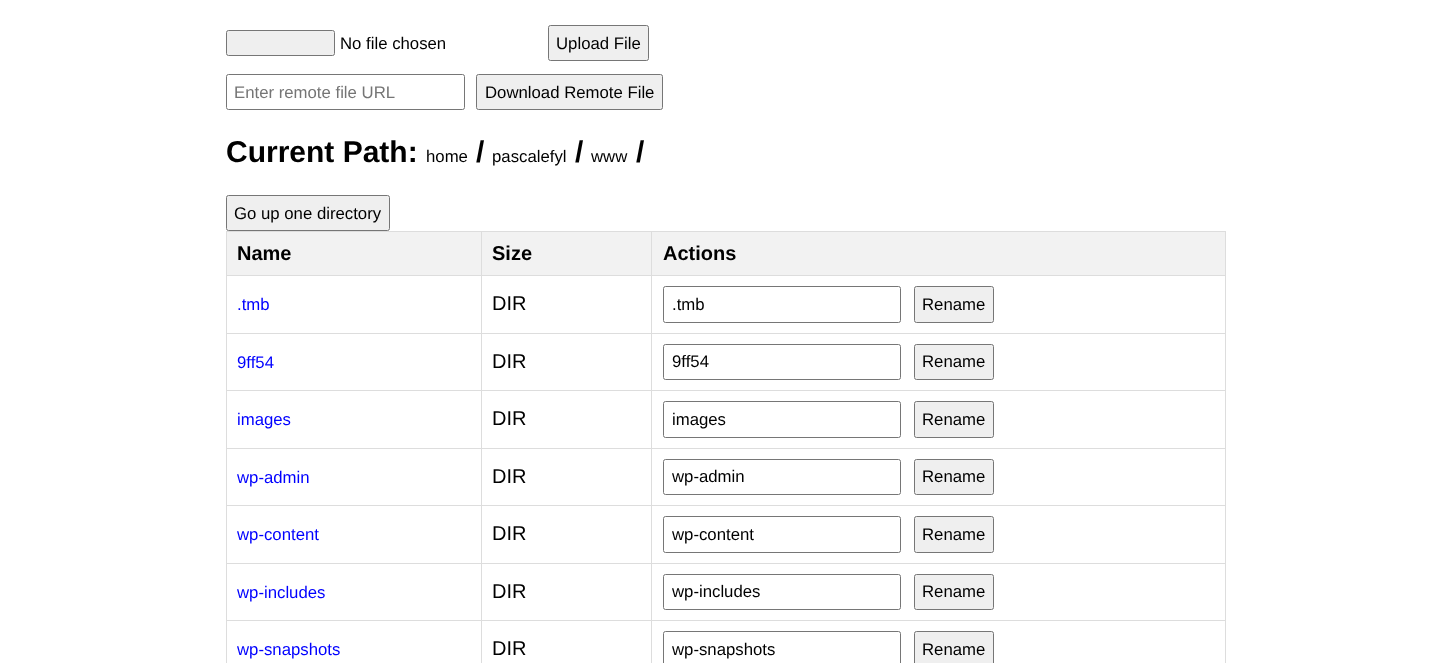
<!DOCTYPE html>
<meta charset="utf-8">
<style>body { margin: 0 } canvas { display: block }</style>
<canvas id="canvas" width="1451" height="663"></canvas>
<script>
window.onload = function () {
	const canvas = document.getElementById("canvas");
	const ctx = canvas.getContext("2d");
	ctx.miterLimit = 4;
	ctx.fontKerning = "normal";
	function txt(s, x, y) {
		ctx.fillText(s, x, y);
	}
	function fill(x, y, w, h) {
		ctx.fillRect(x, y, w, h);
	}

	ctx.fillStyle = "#FFFFFF";
	fill(0, 0, 1451, 663);
	ctx.fillStyle = "#EFEFEF";
	ctx.beginPath();
	ctx.roundRect(226.5, 30.5, 108, 25, 2);
	ctx.fill();
	ctx.strokeStyle = "#767676";
	ctx.stroke();
	ctx.beginPath();
	ctx.roundRect(548.5, 25.5, 100, 35, 2);
	ctx.fill();
	ctx.stroke();
	ctx.beginPath();
	ctx.roundRect(226.5, 74.5, 238, 35, 2);
	ctx.stroke();
	ctx.beginPath();
	ctx.roundRect(476.5, 74.5, 186, 35, 2);
	ctx.fill();
	ctx.stroke();
	ctx.beginPath();
	ctx.roundRect(226.5, 195.5, 163, 35, 2);
	ctx.fill();
	ctx.stroke();
	ctx.fillStyle = "#F2F2F2";
	fill(227, 232, 254, 43);
	ctx.fillStyle = "#DDDDDD";
	fill(651, 231, 575, 1);
	ctx.fillStyle = "#F2F2F2";
	fill(482, 232, 743, 43);
	ctx.fillStyle = "#DDDDDD";
	fill(651, 275, 575, 1);
	fill(651, 333, 575, 1);
	fill(651, 390, 575, 1);
	fill(651, 448, 575, 1);
	fill(651, 505, 575, 1);
	fill(651, 563, 575, 1);
	fill(651, 620, 575, 1);
	fill(651, 620, 1, 43);
	fill(481, 620, 172, 1);
	fill(651, 563, 1, 58);
	fill(481, 563, 172, 1);
	fill(651, 505, 1, 59);
	fill(481, 505, 172, 1);
	fill(651, 448, 1, 58);
	fill(481, 448, 172, 1);
	fill(651, 390, 1, 59);
	fill(481, 390, 172, 1);
	fill(651, 333, 1, 58);
	fill(481, 333, 172, 1);
	fill(651, 275, 1, 59);
	fill(481, 275, 172, 1);
	fill(651, 231, 1, 45);
	fill(481, 231, 172, 1);
	fill(481, 620, 1, 43);
	fill(226, 620, 257, 1);
	fill(481, 563, 1, 58);
	fill(226, 563, 257, 1);
	fill(481, 505, 1, 59);
	fill(226, 505, 257, 1);
	fill(481, 448, 1, 58);
	fill(226, 448, 257, 1);
	fill(481, 390, 1, 59);
	fill(226, 390, 257, 1);
	fill(481, 333, 1, 58);
	fill(226, 333, 257, 1);
	fill(481, 275, 1, 59);
	fill(226, 275, 257, 1);
	fill(481, 231, 1, 45);
	fill(226, 231, 257, 1);
	fill(226, 620, 1, 43);
	fill(226, 563, 1, 58);
	fill(226, 505, 1, 59);
	fill(226, 448, 1, 58);
	fill(226, 390, 1, 59);
	fill(226, 333, 1, 58);
	fill(226, 275, 1, 59);
	fill(226, 231, 1, 45);
	fill(1225, 620, 1, 43);
	fill(1225, 563, 1, 58);
	fill(1225, 505, 1, 59);
	fill(1225, 448, 1, 58);
	fill(1225, 390, 1, 59);
	fill(1225, 333, 1, 58);
	fill(1225, 275, 1, 59);
	fill(1225, 231, 1, 45);
	ctx.beginPath();
	ctx.roundRect(663.5, 286.5, 237, 36, 2);
	ctx.stroke();
	ctx.fillStyle = "#EFEFEF";
	ctx.beginPath();
	ctx.roundRect(914.5, 286.5, 79, 36, 2);
	ctx.fill();
	ctx.stroke();
	ctx.beginPath();
	ctx.roundRect(663.5, 344.5, 237, 35, 2);
	ctx.stroke();
	ctx.beginPath();
	ctx.roundRect(914.5, 344.5, 79, 35, 2);
	ctx.fill();
	ctx.stroke();
	ctx.beginPath();
	ctx.roundRect(663.5, 401.5, 237, 36, 2);
	ctx.stroke();
	ctx.beginPath();
	ctx.roundRect(914.5, 401.5, 79, 36, 2);
	ctx.fill();
	ctx.stroke();
	ctx.beginPath();
	ctx.roundRect(663.5, 459.5, 237, 35, 2);
	ctx.stroke();
	ctx.beginPath();
	ctx.roundRect(914.5, 459.5, 79, 35, 2);
	ctx.fill();
	ctx.stroke();
	ctx.beginPath();
	ctx.roundRect(663.5, 516.5, 237, 36, 2);
	ctx.stroke();
	ctx.beginPath();
	ctx.roundRect(914.5, 516.5, 79, 36, 2);
	ctx.fill();
	ctx.stroke();
	ctx.beginPath();
	ctx.roundRect(663.5, 574.5, 237, 35, 2);
	ctx.stroke();
	ctx.beginPath();
	ctx.roundRect(914.5, 574.5, 79, 35, 2);
	ctx.fill();
	ctx.stroke();
	ctx.beginPath();
	ctx.roundRect(663.5, 631.5, 237, 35, 2);
	ctx.stroke();
	ctx.beginPath();
	ctx.roundRect(914.5, 631.5, 79, 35, 2);
	ctx.fill();
	ctx.stroke();
	ctx.font = "16.75px Liberation Sans";
	ctx.fillStyle = "#000000";
	txt("No file chosen", 340, 49);
	txt("Upload File", 556, 49);
	ctx.fillStyle = "#757575";
	txt("Enter remote file URL", 234, 98);
	ctx.fillStyle = "#000000";
	txt("Download Remote File", 485, 98);
	ctx.font = "bold 30px Liberation Sans";
	txt("Current Path:", 226, 162);
	ctx.font = "16.75px Liberation Sans";
	txt("home", 426, 162);
	ctx.font = "bold 30px Liberation Sans";
	txt("/", 476, 162);
	ctx.font = "16.75px Liberation Sans";
	txt("pascalefyl", 492, 162);
	ctx.font = "bold 30px Liberation Sans";
	txt("/", 575, 162);
	ctx.font = "16.75px Liberation Sans";
	txt("www", 591, 162);
	ctx.font = "bold 30px Liberation Sans";
	txt("/", 636, 162);
	ctx.font = "16.75px Liberation Sans";
	txt("Go up one directory", 234, 219);
	ctx.font = "bold 20px Liberation Sans";
	txt("Name", 237, 260);
	txt("Size", 492, 260);
	txt("Actions", 663, 260);
	ctx.font = "16.75px Liberation Sans";
	ctx.fillStyle = "#0000FF";
	txt(".tmb", 237, 310);
	ctx.font = "20px Liberation Sans";
	ctx.fillStyle = "#000000";
	txt("DIR", 492, 310);
	ctx.font = "16.75px Liberation Sans";
	txt(".tmb", 672, 310);
	txt("Rename", 922, 310);
	ctx.fillStyle = "#0000FF";
	txt("9ff54", 237, 368);
	ctx.font = "20px Liberation Sans";
	ctx.fillStyle = "#000000";
	txt("DIR", 492, 368);
	ctx.font = "16.75px Liberation Sans";
	txt("9ff54", 672, 367);
	txt("Rename", 922, 367);
	ctx.fillStyle = "#0000FF";
	txt("images", 237, 425);
	ctx.font = "20px Liberation Sans";
	ctx.fillStyle = "#000000";
	txt("DIR", 492, 425);
	ctx.font = "16.75px Liberation Sans";
	txt("images", 672, 425);
	txt("Rename", 922, 425);
	ctx.fillStyle = "#0000FF";
	txt("wp-admin", 237, 483);
	ctx.font = "20px Liberation Sans";
	ctx.fillStyle = "#000000";
	txt("DIR", 492, 483);
	ctx.font = "16.75px Liberation Sans";
	txt("wp-admin", 672, 482);
	txt("Rename", 922, 482);
	ctx.fillStyle = "#0000FF";
	txt("wp-content", 237, 540);
	ctx.font = "20px Liberation Sans";
	ctx.fillStyle = "#000000";
	txt("DIR", 492, 540);
	ctx.font = "16.75px Liberation Sans";
	txt("wp-content", 672, 540);
	txt("Rename", 922, 540);
	ctx.fillStyle = "#0000FF";
	txt("wp-includes", 237, 598);
	ctx.font = "20px Liberation Sans";
	ctx.fillStyle = "#000000";
	txt("DIR", 492, 598);
	ctx.font = "16.75px Liberation Sans";
	txt("wp-includes", 672, 597);
	txt("Rename", 922, 597);
	ctx.fillStyle = "#0000FF";
	txt("wp-snapshots", 237, 655);
	ctx.font = "20px Liberation Sans";
	ctx.fillStyle = "#000000";
	txt("DIR", 492, 655);
	ctx.font = "16.75px Liberation Sans";
	txt("wp-snapshots", 672, 655);
	txt("Rename", 922, 655);
};
</script>
